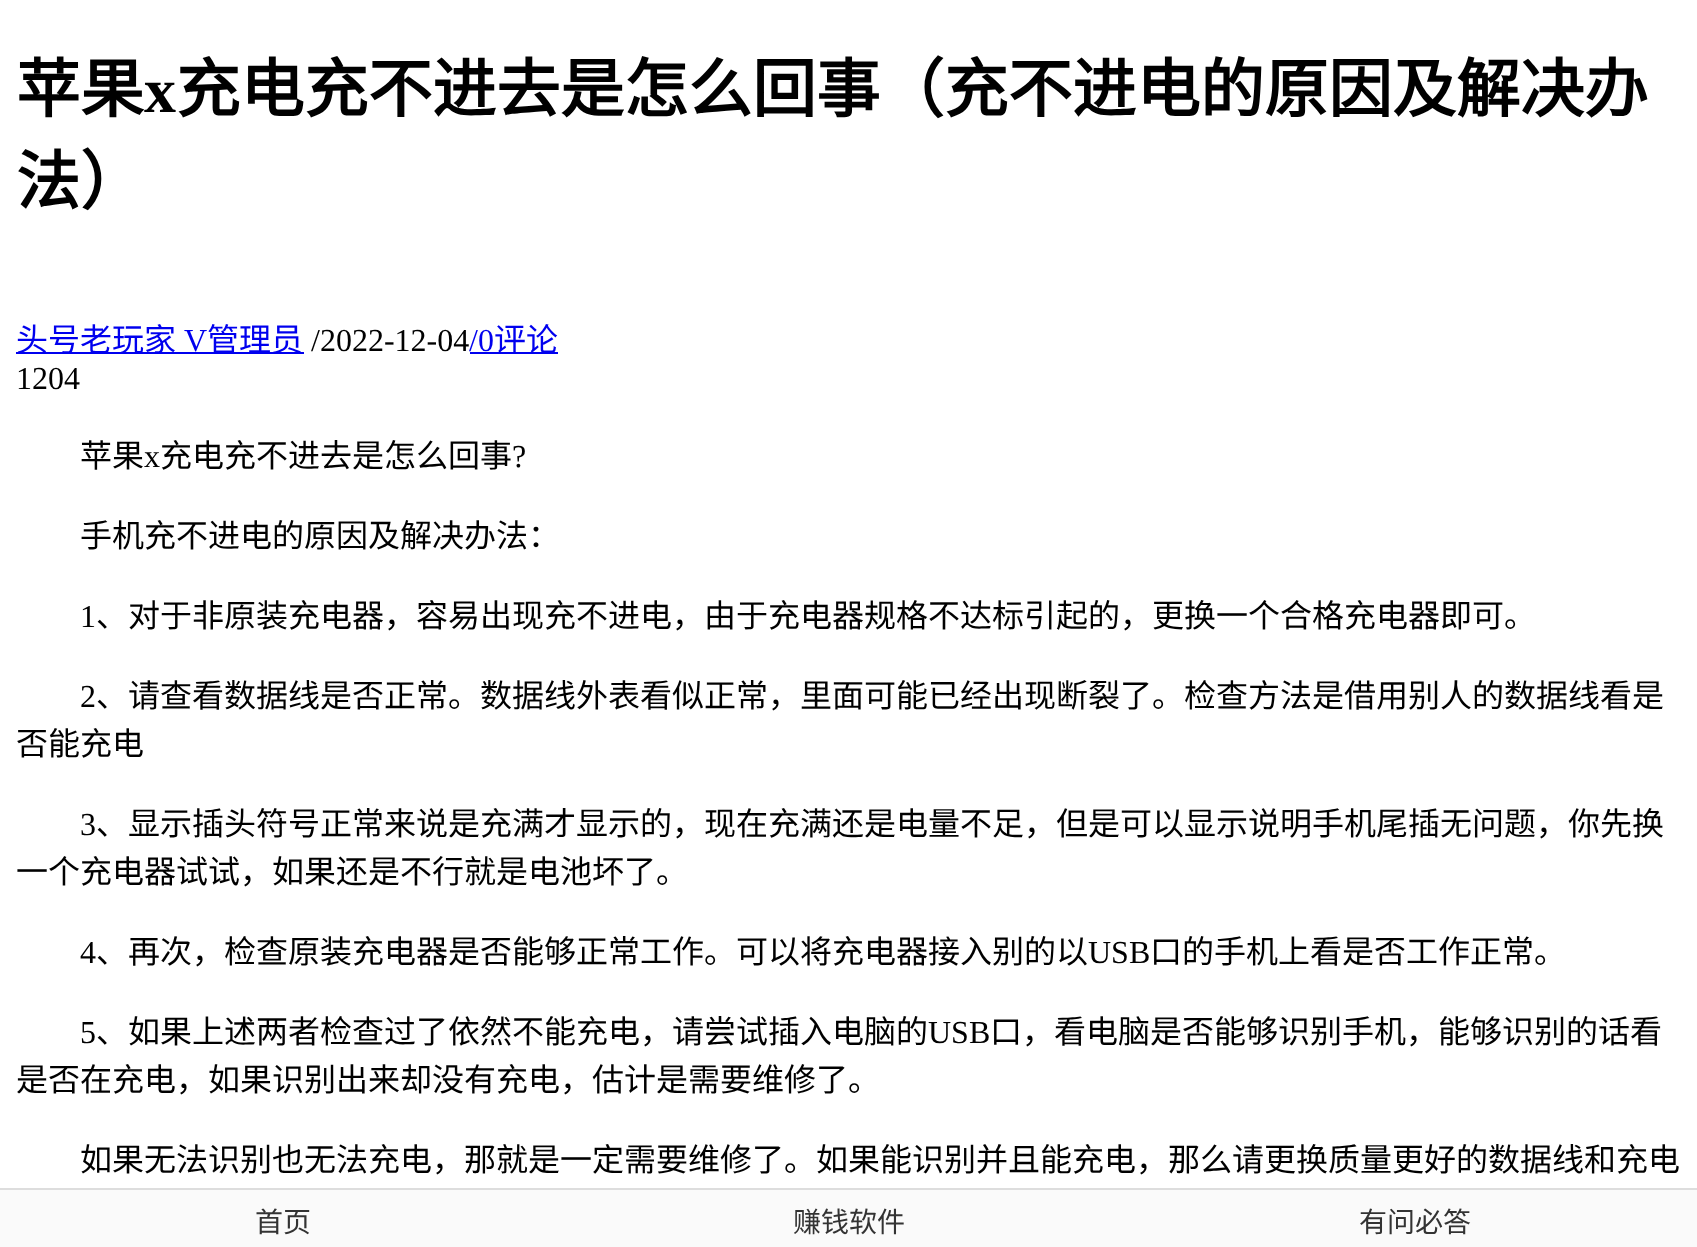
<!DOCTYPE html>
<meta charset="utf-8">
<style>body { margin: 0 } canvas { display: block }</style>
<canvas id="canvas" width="1697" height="1247"></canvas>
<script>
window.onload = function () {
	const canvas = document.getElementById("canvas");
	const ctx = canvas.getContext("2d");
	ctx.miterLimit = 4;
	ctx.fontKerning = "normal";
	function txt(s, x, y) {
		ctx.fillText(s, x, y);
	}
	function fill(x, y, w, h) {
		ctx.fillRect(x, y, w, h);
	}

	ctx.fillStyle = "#FFFFFF";
	fill(0, 0, 1697, 1247);
	ctx.fillStyle = "#0000EE";
	fill(16, 352, 288, 2);
	fill(470, 352, 88, 2);
	ctx.fillStyle = "#FAFAFA";
	fill(0, 1190, 1697, 57);
	ctx.fillStyle = "#DDDDDD";
	fill(0, 1188, 1697, 2);
	ctx.font = "bold 64px Noto Sans CJK SC";
	ctx.fillStyle = "#000000";
	txt("苹果", 16, 112);
	ctx.font = "bold 64px Liberation Serif";
	txt("x", 144, 112);
	ctx.font = "bold 64px Noto Sans CJK SC";
	txt("充电充不进去是怎么回事（充不进电的原因及解决办", 176, 112);
	txt("法）", 16, 204);
	ctx.font = "32px Noto Sans CJK SC";
	ctx.fillStyle = "#0000EE";
	txt("头号老玩家", 16, 351);
	ctx.font = "32px Liberation Serif";
	txt("V", 184, 351);
	ctx.font = "32px Noto Sans CJK SC";
	txt("管理员", 207, 351);
	ctx.font = "32px Liberation Serif";
	ctx.fillStyle = "#000000";
	txt("/2022-12-04", 311, 351);
	ctx.fillStyle = "#0000EE";
	txt("/0", 469, 351);
	ctx.font = "32px Noto Sans CJK SC";
	txt("评论", 494, 351);
	ctx.font = "32px Liberation Serif";
	ctx.fillStyle = "#000000";
	txt("1204", 16, 389);
	ctx.font = "32px Noto Sans CJK SC";
	txt("苹果", 80, 467);
	ctx.font = "32px Liberation Serif";
	txt("x", 144, 467);
	ctx.font = "32px Noto Sans CJK SC";
	txt("充电充不进去是怎么回事", 160, 467);
	ctx.font = "32px Liberation Serif";
	txt("?", 512, 467);
	ctx.font = "32px Noto Sans CJK SC";
	txt("手机充不进电的原因及解决办法：", 80, 547);
	ctx.font = "32px Liberation Serif";
	txt("1", 80, 627);
	ctx.font = "32px Noto Sans CJK SC";
	txt("、对于非原装充电器，容易出现充不进电，由于充电器规格不达标引起的，更换一个合格充电器即可。", 96, 627);
	ctx.font = "32px Liberation Serif";
	txt("2", 80, 707);
	ctx.font = "32px Noto Sans CJK SC";
	txt("、请查看数据线是否正常。数据线外表看似正常，里面可能已经出现断裂了。检查方法是借用别人的数据线看是", 96, 707);
	txt("否能充电", 16, 755);
	ctx.font = "32px Liberation Serif";
	txt("3", 80, 835);
	ctx.font = "32px Noto Sans CJK SC";
	txt("、显示插头符号正常来说是充满才显示的，现在充满还是电量不足，但是可以显示说明手机尾插无问题，你先换", 96, 835);
	txt("一个充电器试试，如果还是不行就是电池坏了。", 16, 883);
	ctx.font = "32px Liberation Serif";
	txt("4", 80, 963);
	ctx.font = "32px Noto Sans CJK SC";
	txt("、再次，检查原装充电器是否能够正常工作。可以将充电器接入别的以", 96, 963);
	ctx.font = "32px Liberation Serif";
	txt("USB", 1088, 963);
	ctx.font = "32px Noto Sans CJK SC";
	txt("口的手机上看是否工作正常。", 1150, 963);
	ctx.font = "32px Liberation Serif";
	txt("5", 80, 1043);
	ctx.font = "32px Noto Sans CJK SC";
	txt("、如果上述两者检查过了依然不能充电，请尝试插入电脑的", 96, 1043);
	ctx.font = "32px Liberation Serif";
	txt("USB", 928, 1043);
	ctx.font = "32px Noto Sans CJK SC";
	txt("口，看电脑是否能够识别手机，能够识别的话看", 990, 1043);
	txt("是否在充电，如果识别出来却没有充电，估计是需要维修了。", 16, 1091);
	txt("如果无法识别也无法充电，那就是一定需要维修了。如果能识别并且能充电，那么请更换质量更好的数据线和充电", 80, 1171);
	ctx.font = "28px Noto Sans CJK SC";
	ctx.fillStyle = "#333333";
	txt("首页", 255, 1232);
	txt("赚钱软件", 793, 1232);
	txt("有问必答", 1359, 1232);
};
</script>
